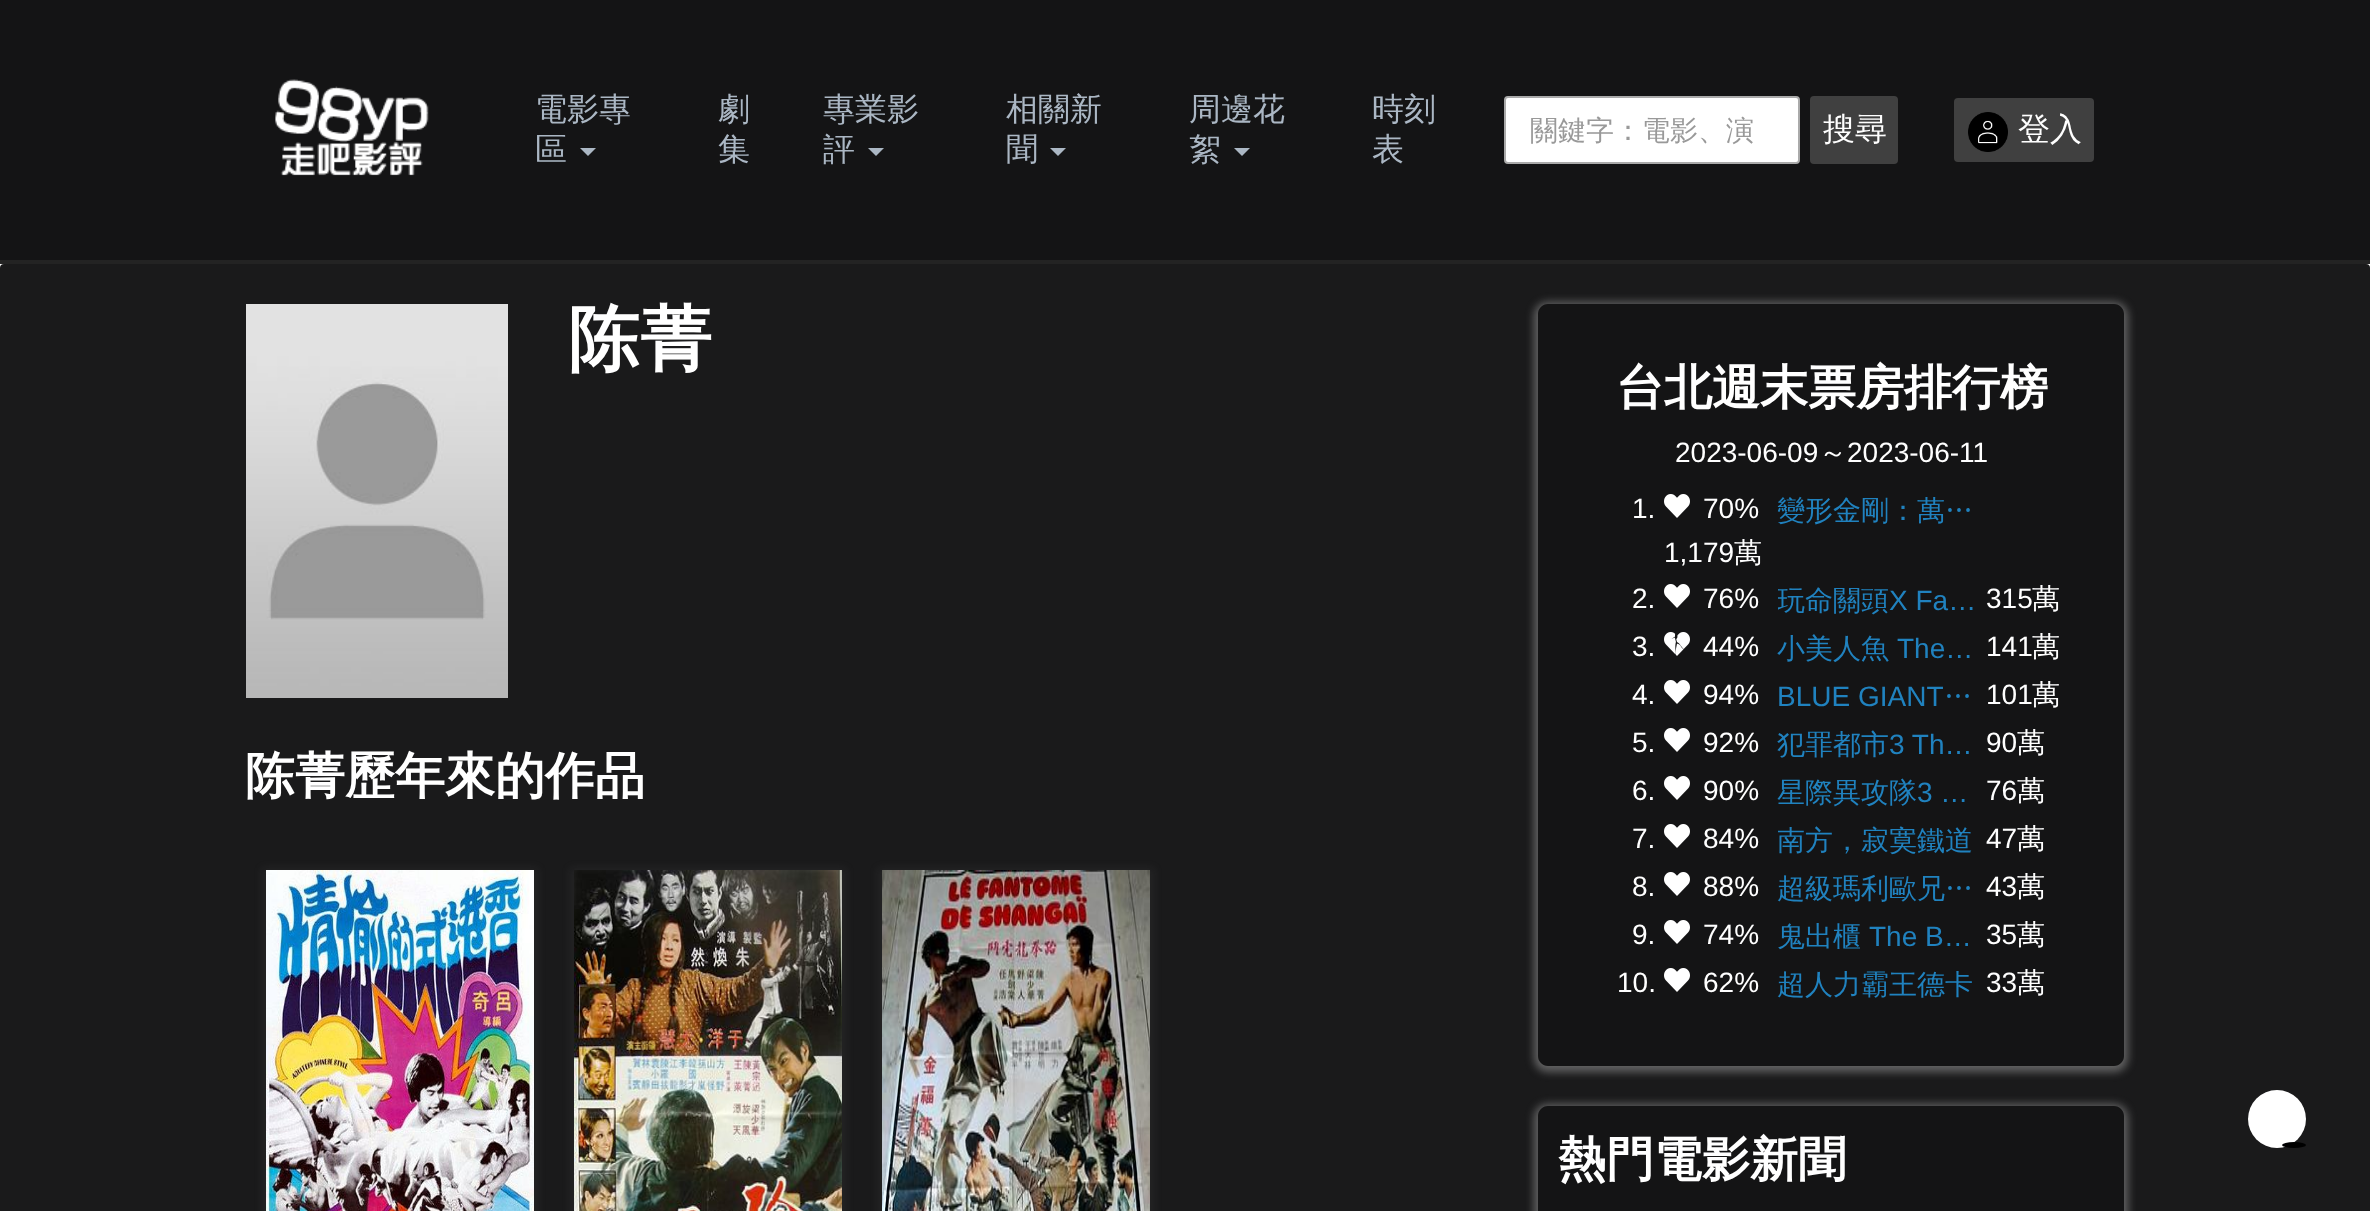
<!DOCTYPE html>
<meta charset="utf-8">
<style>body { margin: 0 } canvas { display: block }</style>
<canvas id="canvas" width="2370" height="1211"></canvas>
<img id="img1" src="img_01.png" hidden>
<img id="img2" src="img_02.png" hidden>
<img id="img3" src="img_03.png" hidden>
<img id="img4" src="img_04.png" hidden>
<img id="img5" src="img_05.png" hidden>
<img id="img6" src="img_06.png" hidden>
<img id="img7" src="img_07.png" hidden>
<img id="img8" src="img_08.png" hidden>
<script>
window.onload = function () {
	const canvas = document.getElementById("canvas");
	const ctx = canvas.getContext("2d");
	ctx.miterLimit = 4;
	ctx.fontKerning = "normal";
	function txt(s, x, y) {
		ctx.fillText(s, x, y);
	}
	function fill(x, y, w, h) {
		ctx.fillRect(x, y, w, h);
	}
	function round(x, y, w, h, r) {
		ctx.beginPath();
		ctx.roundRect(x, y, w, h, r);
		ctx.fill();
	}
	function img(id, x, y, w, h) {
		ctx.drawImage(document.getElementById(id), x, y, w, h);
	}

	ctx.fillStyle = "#FFFFFF";
	fill(0, 0, 2370, 1211);
	ctx.fillStyle = "#141415";
	fill(0, 0, 2370, 260);
	ctx.fillStyle = "#232323";
	fill(0, 260, 2370, 4);
	img("img1", 275, 79, 154, 97);
	ctx.fillStyle = "#ABB7C4";
	ctx.beginPath();
	ctx.moveTo(580, 148);
	ctx.lineTo(596, 148);
	ctx.lineTo(588, 156);
	ctx.closePath();
	ctx.fill();
	ctx.beginPath();
	ctx.moveTo(868, 148);
	ctx.lineTo(884, 148);
	ctx.lineTo(876, 156);
	ctx.closePath();
	ctx.fill();
	ctx.beginPath();
	ctx.moveTo(1050, 148);
	ctx.lineTo(1066, 148);
	ctx.lineTo(1058, 156);
	ctx.closePath();
	ctx.fill();
	ctx.beginPath();
	ctx.moveTo(1234, 148);
	ctx.lineTo(1250, 148);
	ctx.lineTo(1242, 156);
	ctx.closePath();
	ctx.fill();
	ctx.fillStyle = "#FFFFFF";
	ctx.beginPath();
	ctx.roundRect(1505, 97, 294, 66, 3);
	ctx.fill();
	ctx.strokeStyle = "#AAAAAA";
	ctx.lineWidth = 2;
	ctx.stroke();
	ctx.fillStyle = "#404040";
	round(1810, 96, 88, 68, 4);
	round(1954, 98, 140, 64, 4);
	img("img2", 1968, 112, 40, 40);
	ctx.fillStyle = "#1A1A1B";
	round(0, 264, 2370, 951, 4);
	img("img3", 246, 304, 262, 394);
	ctx.fillStyle = "rgba(132, 132, 132, 0.1)";
	ctx.filter = "blur(4px)";
	ctx.beginPath();
	ctx.rect(262, 868, 276, 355);
	ctx.fill();
	ctx.filter = "none";
	img("img4", 266, 870, 268, 341);
	ctx.filter = "blur(4px)";
	ctx.beginPath();
	ctx.rect(570, 868, 276, 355);
	ctx.fill();
	ctx.filter = "none";
	img("img5", 574, 870, 268, 341);
	ctx.filter = "blur(4px)";
	ctx.beginPath();
	ctx.rect(878, 868, 276, 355);
	ctx.fill();
	ctx.filter = "none";
	img("img6", 882, 870, 268, 341);
	ctx.save();
	ctx.beginPath();
	ctx.moveTo(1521, 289);
	ctx.lineTo(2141, 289);
	ctx.lineTo(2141, 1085);
	ctx.lineTo(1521, 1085);
	ctx.closePath();
	ctx.moveTo(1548, 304);
	ctx.lineTo(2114, 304);
	ctx.bezierCurveTo(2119.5, 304, 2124, 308.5, 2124, 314);
	ctx.lineTo(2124, 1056);
	ctx.bezierCurveTo(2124, 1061.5, 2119.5, 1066, 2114, 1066);
	ctx.lineTo(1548, 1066);
	ctx.bezierCurveTo(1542.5, 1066, 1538, 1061.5, 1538, 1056);
	ctx.lineTo(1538, 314);
	ctx.bezierCurveTo(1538, 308.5, 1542.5, 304, 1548, 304);
	ctx.closePath();
	ctx.clip("evenodd");
	ctx.fillStyle = "rgba(171, 171, 171, 0.5)";
	ctx.filter = "blur(4px)";
	ctx.beginPath();
	ctx.roundRect(1534, 302, 594, 770, 14);
	ctx.fill();
	ctx.filter = "none";
	ctx.restore();
	ctx.fillStyle = "rgba(0, 0, 0, 0.21)";
	round(1538, 304, 586, 762, 10);
	img("img7", 1664, 494, 26, 24);
	img("img7", 1664, 584, 26, 24);
	img("img8", 1664, 632, 26, 24);
	img("img7", 1664, 680, 26, 24);
	img("img7", 1664, 728, 26, 24);
	img("img7", 1664, 776, 26, 24);
	img("img7", 1664, 824, 26, 24);
	img("img7", 1664, 872, 26, 24);
	img("img7", 1664, 920, 26, 24);
	img("img7", 1664, 968, 26, 24);
	ctx.save();
	ctx.beginPath();
	ctx.moveTo(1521, 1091);
	ctx.lineTo(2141, 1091);
	ctx.lineTo(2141, 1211);
	ctx.lineTo(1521, 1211);
	ctx.closePath();
	ctx.moveTo(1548, 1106);
	ctx.lineTo(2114, 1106);
	ctx.bezierCurveTo(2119.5, 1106, 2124, 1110.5, 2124, 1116);
	ctx.lineTo(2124, 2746);
	ctx.bezierCurveTo(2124, 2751.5, 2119.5, 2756, 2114, 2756);
	ctx.lineTo(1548, 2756);
	ctx.bezierCurveTo(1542.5, 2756, 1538, 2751.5, 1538, 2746);
	ctx.lineTo(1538, 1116);
	ctx.bezierCurveTo(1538, 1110.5, 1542.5, 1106, 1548, 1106);
	ctx.closePath();
	ctx.clip("evenodd");
	ctx.fillStyle = "rgba(171, 171, 171, 0.5)";
	ctx.filter = "blur(4px)";
	ctx.beginPath();
	ctx.roundRect(1534, 1104, 594, 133, 14);
	ctx.fill();
	ctx.filter = "none";
	ctx.restore();
	round(1538, 1106, 586, 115, 10);
	ctx.fillStyle = "#FFFFFF";
	ctx.beginPath();
	ctx.arc(2277, 1119, 29, 0, Math.PI * 2);
	ctx.fill();
	ctx.fillStyle = "#000000";
	ctx.beginPath();
	ctx.ellipse(2294, 1145, 12, 3, 0, 0, Math.PI * 2);
	ctx.fill();
	ctx.font = "500 32px WenQuanYi Zen Hei";
	ctx.fillStyle = "#ABB7C4";
	txt("電影專", 535, 120);
	txt("區", 535, 160);
	txt("劇", 718, 120);
	txt("集", 718, 160);
	txt("專業影", 823, 120);
	txt("評", 823, 160);
	txt("相關新", 1006, 120);
	txt("聞", 1006, 160);
	txt("周邊花", 1189, 120);
	txt("絮", 1189, 160);
	txt("時刻", 1372, 120);
	txt("表", 1372, 160);
	ctx.font = "500 28px WenQuanYi Zen Hei";
	ctx.fillStyle = "#999999";
	txt("關鍵字：電影、演", 1530, 140);
	ctx.font = "500 32px WenQuanYi Zen Hei";
	ctx.fillStyle = "#FFFFFF";
	txt("搜尋", 1823, 140);
	txt("登入", 2018, 140);
	ctx.font = "bold 72px WenQuanYi Zen Hei";
	txt("陈菁", 568, 364);
	ctx.font = "bold 50px WenQuanYi Zen Hei";
	txt("陈菁歷年來的作品", 245, 793);
	ctx.font = "bold 48px WenQuanYi Zen Hei";
	txt("台北週末票房排行榜", 1616, 404);
	ctx.font = "28px Liberation Sans";
	txt("2023-06-09", 1675, 462);
	ctx.font = "500 28px WenQuanYi Zen Hei";
	txt("～", 1819, 462);
	ctx.font = "28px Liberation Sans";
	txt("2023-06-11", 1847, 462);
	txt("1.", 1632, 518);
	txt("70%", 1703, 518);
	ctx.font = "500 28px WenQuanYi Zen Hei";
	ctx.fillStyle = "#2082BF";
	txt("變形金剛：萬…", 1777, 520);
	ctx.font = "28px Liberation Sans";
	ctx.fillStyle = "#FFFFFF";
	txt("1,179", 1664, 562);
	ctx.font = "500 28px WenQuanYi Zen Hei";
	txt("萬", 1734, 562);
	ctx.font = "28px Liberation Sans";
	txt("2.", 1632, 608);
	txt("76%", 1703, 608);
	ctx.save();
	ctx.beginPath();
	ctx.rect(1778, 580, 200, 42);
	ctx.clip();
	ctx.font = "500 28px WenQuanYi Zen Hei";
	ctx.fillStyle = "#2082BF";
	txt("玩命關頭", 1777, 610);
	ctx.restore();
	ctx.fillStyle = "#2082BF";
	txt("X Fa…", 1889, 610);
	ctx.fillStyle = "#FFFFFF";
	txt("315", 1986, 608);
	ctx.font = "500 28px WenQuanYi Zen Hei";
	txt("萬", 2032, 608);
	ctx.font = "28px Liberation Sans";
	txt("3.", 1632, 656);
	txt("44%", 1703, 656);
	ctx.font = "500 28px WenQuanYi Zen Hei";
	ctx.fillStyle = "#2082BF";
	txt("小美人魚", 1777, 658);
	ctx.font = "28px Liberation Sans";
	txt("The…", 1897, 658);
	ctx.fillStyle = "#FFFFFF";
	txt("141", 1986, 656);
	ctx.font = "500 28px WenQuanYi Zen Hei";
	txt("萬", 2032, 656);
	ctx.font = "28px Liberation Sans";
	txt("4.", 1632, 704);
	txt("94%", 1703, 704);
	ctx.fillStyle = "#2082BF";
	txt("BLUE GIANT", 1777, 706);
	ctx.font = "500 28px WenQuanYi Zen Hei";
	txt("…", 1944, 706);
	ctx.font = "28px Liberation Sans";
	ctx.fillStyle = "#FFFFFF";
	txt("101", 1986, 704);
	ctx.font = "500 28px WenQuanYi Zen Hei";
	txt("萬", 2032, 704);
	ctx.font = "28px Liberation Sans";
	txt("5.", 1632, 752);
	txt("92%", 1703, 752);
	ctx.font = "500 28px WenQuanYi Zen Hei";
	ctx.fillStyle = "#2082BF";
	txt("犯罪都市", 1777, 754);
	ctx.font = "28px Liberation Sans";
	txt("3 Th…", 1889, 754);
	ctx.fillStyle = "#FFFFFF";
	txt("90", 1986, 752);
	ctx.font = "500 28px WenQuanYi Zen Hei";
	txt("萬", 2017, 752);
	ctx.font = "28px Liberation Sans";
	txt("6.", 1632, 800);
	txt("90%", 1703, 800);
	ctx.font = "500 28px WenQuanYi Zen Hei";
	ctx.fillStyle = "#2082BF";
	txt("星際異攻隊", 1777, 802);
	ctx.font = "28px Liberation Sans";
	txt("3 …", 1917, 802);
	ctx.fillStyle = "#FFFFFF";
	txt("76", 1986, 800);
	ctx.font = "500 28px WenQuanYi Zen Hei";
	txt("萬", 2017, 800);
	ctx.font = "28px Liberation Sans";
	txt("7.", 1632, 848);
	txt("84%", 1703, 848);
	ctx.save();
	ctx.beginPath();
	ctx.rect(1778, 820, 200, 42);
	ctx.clip();
	ctx.font = "500 28px WenQuanYi Zen Hei";
	ctx.fillStyle = "#2082BF";
	txt("南方，寂寞鐵道", 1777, 850);
	ctx.restore();
	txt("47", 1986, 848);
	ctx.font = "500 28px WenQuanYi Zen Hei";
	txt("萬", 2017, 848);
	ctx.font = "28px Liberation Sans";
	txt("8.", 1632, 896);
	txt("88%", 1703, 896);
	ctx.font = "500 28px WenQuanYi Zen Hei";
	ctx.fillStyle = "#2082BF";
	txt("超級瑪利歐兄…", 1777, 898);
	ctx.font = "28px Liberation Sans";
	ctx.fillStyle = "#FFFFFF";
	txt("43", 1986, 896);
	ctx.font = "500 28px WenQuanYi Zen Hei";
	txt("萬", 2017, 896);
	ctx.font = "28px Liberation Sans";
	txt("9.", 1632, 944);
	txt("74%", 1703, 944);
	ctx.font = "500 28px WenQuanYi Zen Hei";
	ctx.fillStyle = "#2082BF";
	txt("鬼出櫃", 1777, 946);
	ctx.font = "28px Liberation Sans";
	txt("The B…", 1869, 946);
	ctx.fillStyle = "#FFFFFF";
	txt("35", 1986, 944);
	ctx.font = "500 28px WenQuanYi Zen Hei";
	txt("萬", 2017, 944);
	ctx.font = "28px Liberation Sans";
	txt("10.", 1617, 992);
	txt("62%", 1703, 992);
	ctx.font = "500 28px WenQuanYi Zen Hei";
	ctx.fillStyle = "#2082BF";
	txt("超人力霸王德卡", 1777, 994);
	ctx.font = "28px Liberation Sans";
	ctx.fillStyle = "#FFFFFF";
	txt("33", 1986, 992);
	ctx.font = "500 28px WenQuanYi Zen Hei";
	txt("萬", 2017, 992);
	ctx.font = "bold 48px WenQuanYi Zen Hei";
	txt("熱門電影新聞", 1558, 1176);
};
</script>
